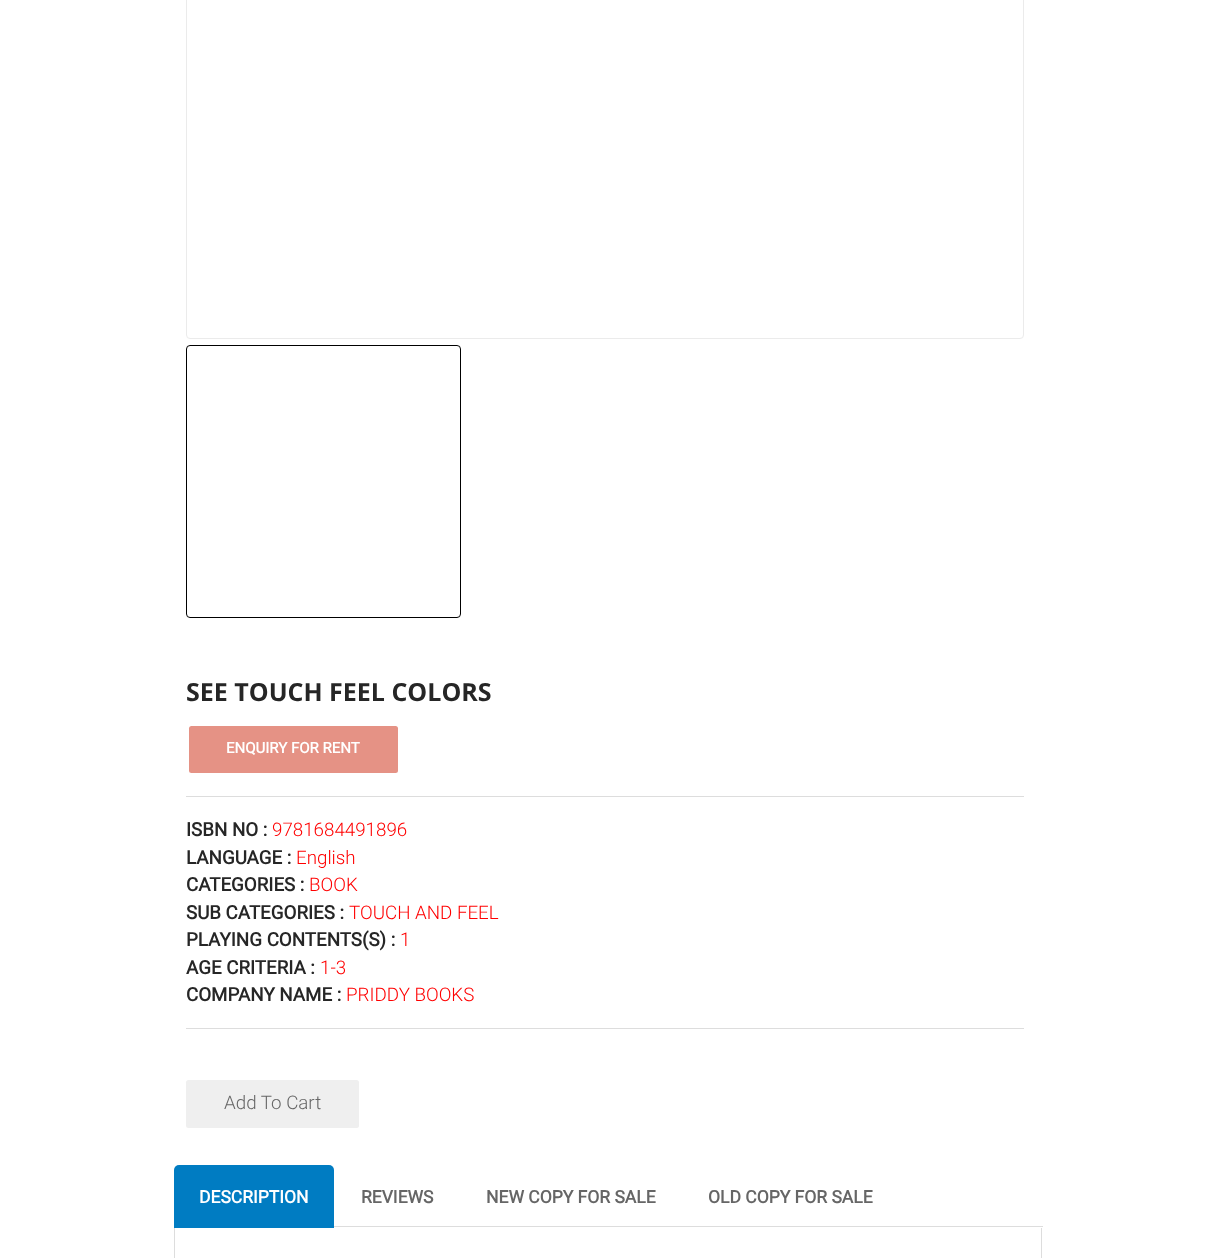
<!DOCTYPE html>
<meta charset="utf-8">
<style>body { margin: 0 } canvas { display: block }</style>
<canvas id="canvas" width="1222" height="1258"></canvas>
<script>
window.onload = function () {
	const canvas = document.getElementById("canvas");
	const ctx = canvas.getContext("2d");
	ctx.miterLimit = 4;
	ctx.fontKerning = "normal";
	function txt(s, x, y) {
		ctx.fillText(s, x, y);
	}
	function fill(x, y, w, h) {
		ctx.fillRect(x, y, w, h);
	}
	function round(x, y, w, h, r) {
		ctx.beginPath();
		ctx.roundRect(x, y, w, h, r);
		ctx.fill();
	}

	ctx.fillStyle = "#FFFFFF";
	fill(0, 0, 1222, 1258);
	ctx.beginPath();
	ctx.roundRect(186.5, -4.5, 837, 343, 3.5);
	ctx.strokeStyle = "#EBEBEB";
	ctx.stroke();
	ctx.beginPath();
	ctx.roundRect(186.5, 345.5, 274, 272, 3.5);
	ctx.strokeStyle = "#000000";
	ctx.stroke();
	ctx.fillStyle = "#E59285";
	round(189, 726, 209, 47, 2.5);
	ctx.fillStyle = "#DDDDDD";
	fill(186, 796, 838, 1);
	fill(186, 1028, 838, 1);
	ctx.fillStyle = "#EFEFEF";
	round(186, 1080, 173, 48, 2.5);
	ctx.fillStyle = "#DDDDDD";
	fill(334, 1226, 709, 1);
	ctx.fillStyle = "#007CC2";
	ctx.beginPath();
	ctx.roundRect(174, 1165, 160, 63, [5, 5, 0, 0]);
	ctx.fill();
	ctx.fillStyle = "#DDDDDD";
	fill(1041, 1228, 1, 30);
	fill(174, 1228, 1, 30);
	ctx.font = "bold 25px Open Sans";
	ctx.fillStyle = "#262626";
	txt("SEE TOUCH FEEL COLORS", 186, 701);
	ctx.font = "bold 15px Roboto";
	ctx.fillStyle = "#FFFFFF";
	txt("ENQUIRY FOR RENT", 226, 753);
	ctx.font = "bold 18.75px Roboto";
	ctx.fillStyle = "#262626";
	txt("ISBN NO :", 186, 836);
	ctx.font = "300 18.75px Roboto";
	ctx.fillStyle = "#FF0000";
	txt("9781684491896", 272, 836);
	ctx.font = "bold 18.75px Roboto";
	ctx.fillStyle = "#262626";
	txt("LANGUAGE :", 186, 864);
	ctx.font = "300 18.75px Roboto";
	ctx.fillStyle = "#FF0000";
	txt("English", 296, 864);
	ctx.font = "bold 18.75px Roboto";
	ctx.fillStyle = "#262626";
	txt("CATEGORIES :", 186, 891);
	ctx.font = "300 18.75px Roboto";
	ctx.fillStyle = "#FF0000";
	txt("BOOK", 309, 891);
	ctx.font = "bold 18.75px Roboto";
	ctx.fillStyle = "#262626";
	txt("SUB CATEGORIES :", 186, 919);
	ctx.font = "300 18.75px Roboto";
	ctx.fillStyle = "#FF0000";
	txt("TOUCH AND FEEL", 349, 919);
	ctx.font = "bold 18.75px Roboto";
	ctx.fillStyle = "#262626";
	txt("PLAYING CONTENTS(S) :", 186, 946);
	ctx.font = "300 18.75px Roboto";
	ctx.fillStyle = "#FF0000";
	txt("1", 400, 946);
	ctx.font = "bold 18.75px Roboto";
	ctx.fillStyle = "#262626";
	txt("AGE CRITERIA :", 186, 974);
	ctx.font = "300 18.75px Roboto";
	ctx.fillStyle = "#FF0000";
	txt("1-3", 320, 974);
	ctx.font = "bold 18.75px Roboto";
	ctx.fillStyle = "#262626";
	txt("COMPANY NAME :", 186, 1001);
	ctx.font = "300 18.75px Roboto";
	ctx.fillStyle = "#FF0000";
	txt("PRIDDY BOOKS", 346, 1001);
	ctx.fillStyle = "#666666";
	txt("Add To Cart", 224, 1109);
	ctx.font = "bold 17.5px Roboto";
	ctx.fillStyle = "#FFFFFF";
	txt("DESCRIPTION", 199, 1203);
	ctx.fillStyle = "#666666";
	txt("REVIEWS", 361, 1203);
	txt("NEW COPY FOR SALE", 486, 1203);
	txt("OLD COPY FOR SALE", 708, 1203);
};
</script>
